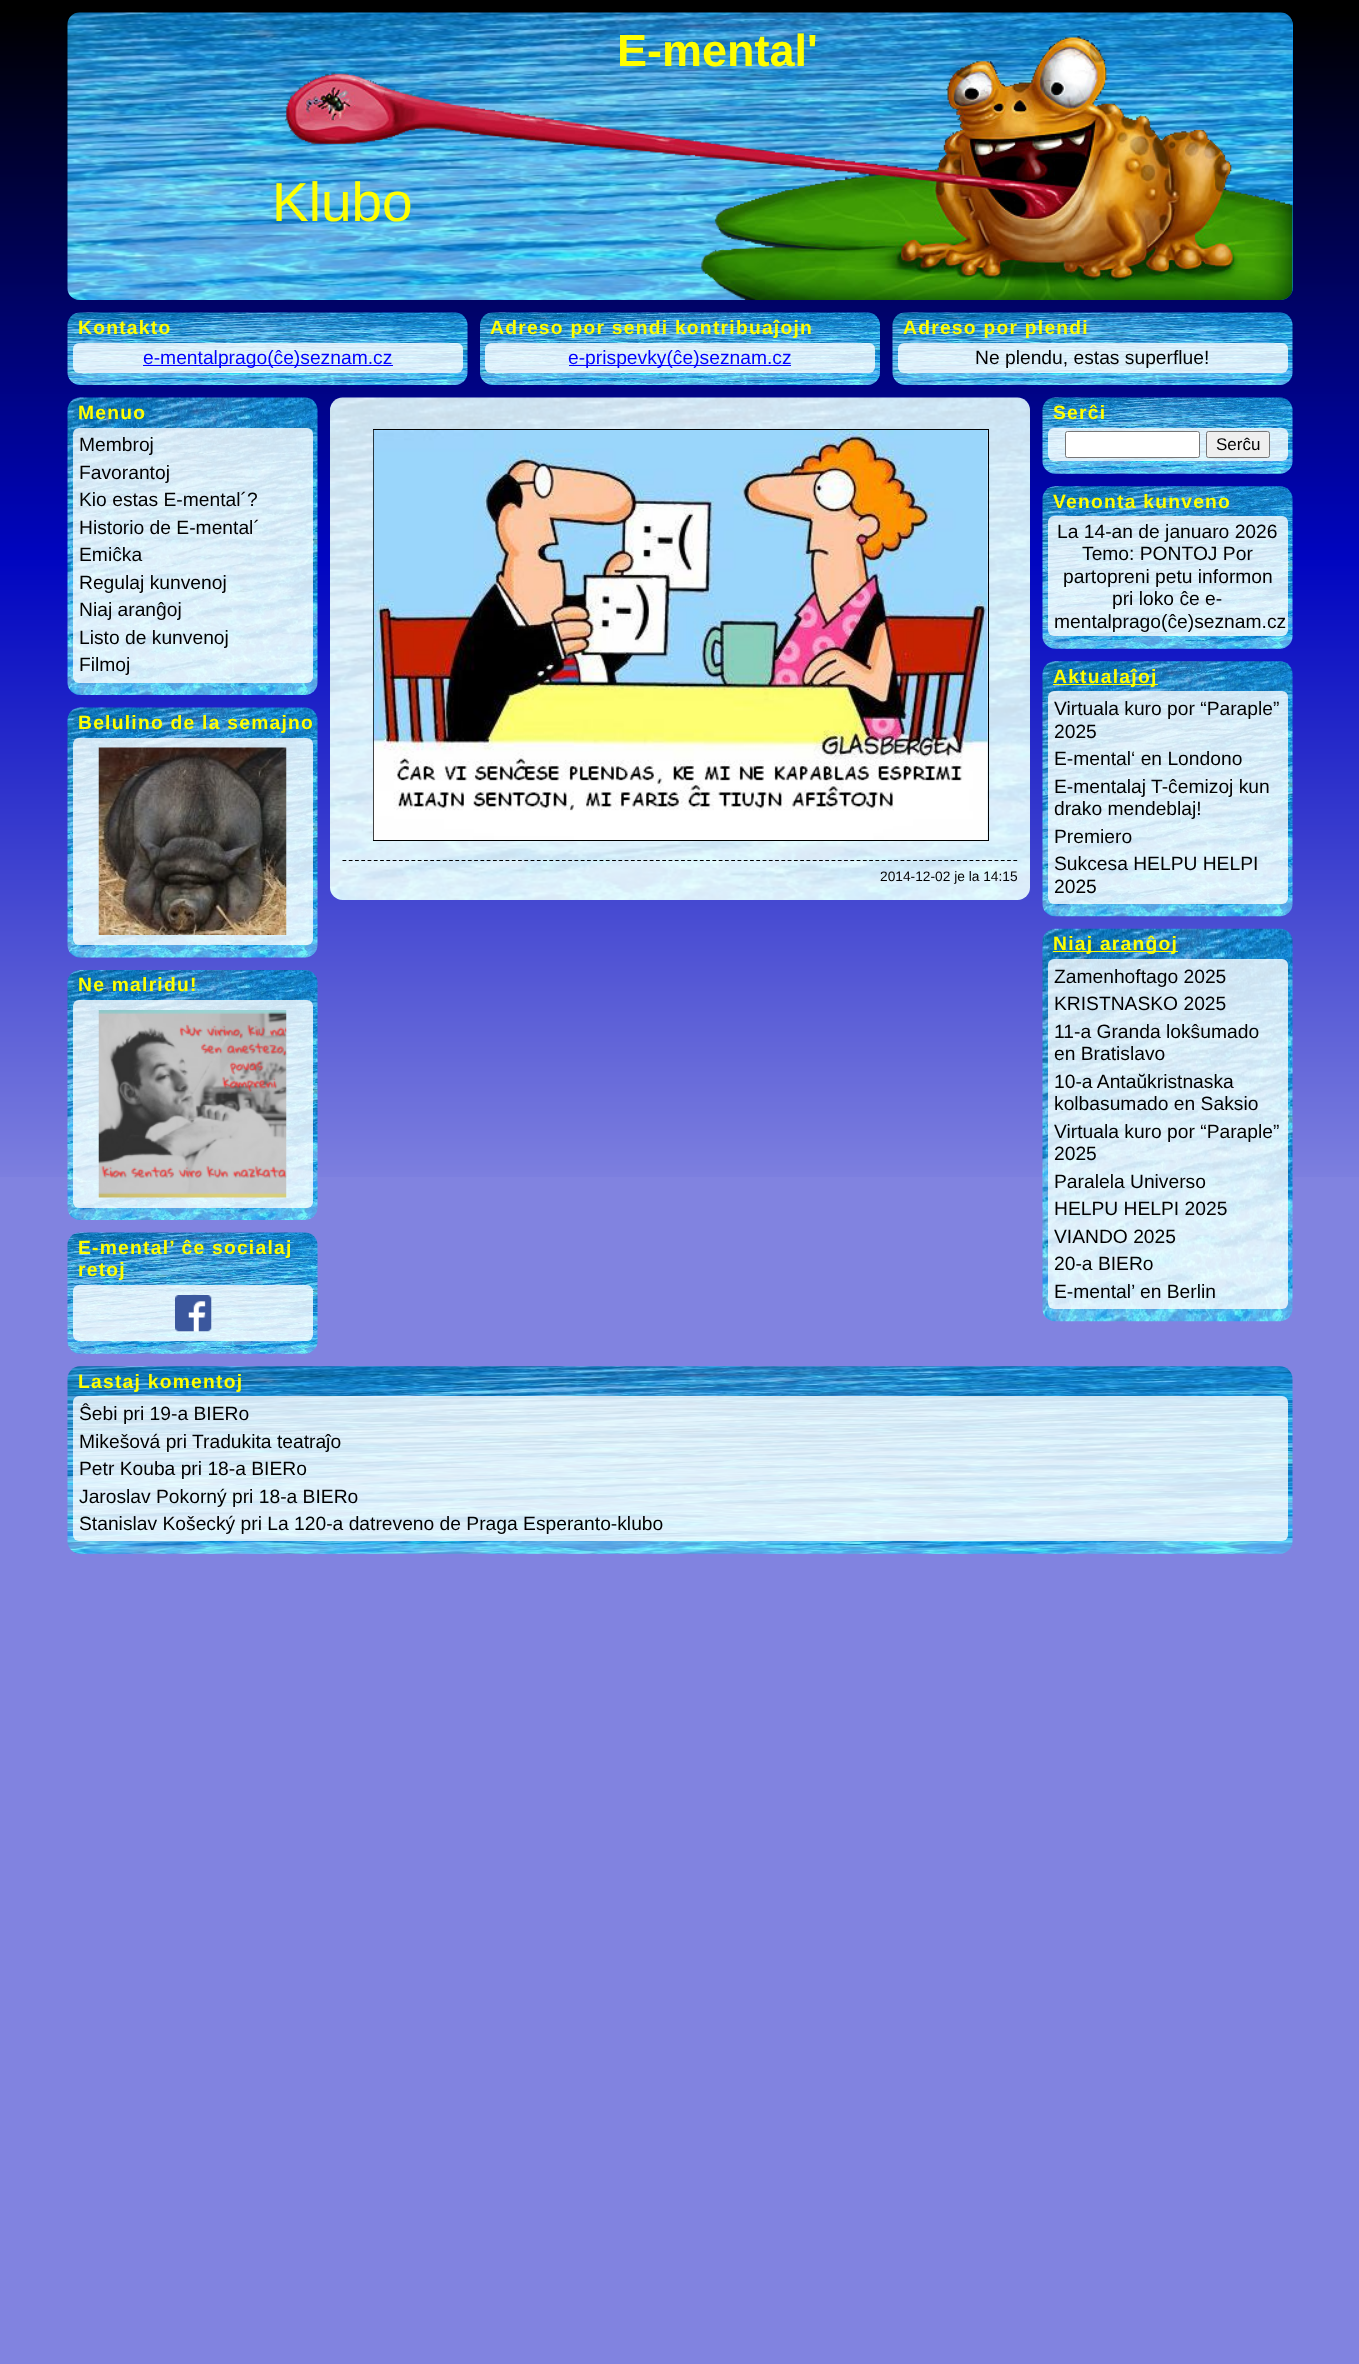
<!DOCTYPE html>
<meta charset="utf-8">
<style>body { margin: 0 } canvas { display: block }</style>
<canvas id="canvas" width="1359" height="2364"></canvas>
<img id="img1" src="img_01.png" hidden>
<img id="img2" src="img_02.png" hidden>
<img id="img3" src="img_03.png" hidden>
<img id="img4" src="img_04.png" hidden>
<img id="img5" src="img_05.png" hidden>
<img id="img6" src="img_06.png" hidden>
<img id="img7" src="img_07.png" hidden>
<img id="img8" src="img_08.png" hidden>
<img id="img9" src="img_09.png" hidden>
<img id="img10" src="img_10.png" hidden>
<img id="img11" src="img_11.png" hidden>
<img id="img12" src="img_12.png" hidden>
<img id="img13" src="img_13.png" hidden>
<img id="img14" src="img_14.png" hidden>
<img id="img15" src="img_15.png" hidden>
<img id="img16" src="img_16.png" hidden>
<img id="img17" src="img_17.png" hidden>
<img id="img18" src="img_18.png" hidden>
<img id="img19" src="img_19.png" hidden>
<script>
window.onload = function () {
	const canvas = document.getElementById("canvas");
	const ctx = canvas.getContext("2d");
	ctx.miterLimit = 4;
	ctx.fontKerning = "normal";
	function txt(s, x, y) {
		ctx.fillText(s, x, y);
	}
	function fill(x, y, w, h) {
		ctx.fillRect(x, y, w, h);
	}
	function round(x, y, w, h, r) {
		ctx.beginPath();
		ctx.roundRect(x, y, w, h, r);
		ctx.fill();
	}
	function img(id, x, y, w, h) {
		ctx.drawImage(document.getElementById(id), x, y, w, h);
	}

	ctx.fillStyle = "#8183E0";
	fill(0, 0, 1359, 2364);
	img("img1", 0, 0, 1359, 1177);
	ctx.fillStyle = "#0099FF";
	round(68, 13, 1225, 287, 13);
	img("img2", 67, 12, 1226, 288);
	img("img3", 67, 312, 401, 73);
	ctx.fillStyle = "rgba(255, 255, 255, 0.8)";
	round(73, 343, 390, 30, 6);
	ctx.fillStyle = "#0000FF";
	fill(143, 365, 250, 1);
	img("img4", 480, 312, 400, 73);
	ctx.fillStyle = "rgba(255, 255, 255, 0.8)";
	round(485, 343, 390, 30, 6);
	ctx.fillStyle = "#0000FF";
	fill(569, 365, 222, 1);
	img("img5", 892, 312, 401, 73);
	ctx.fillStyle = "rgba(255, 255, 255, 0.8)";
	round(898, 343, 390, 30, 6);
	img("img6", 67, 397, 251, 298);
	round(73, 428, 240, 255, 6);
	img("img7", 67, 707, 251, 251);
	round(73, 738, 240, 207, 6);
	img("img8", 98, 747, 189, 188);
	img("img9", 67, 970, 251, 250);
	round(73, 1000, 240, 208, 6);
	img("img10", 98, 1010, 189, 188);
	img("img11", 67, 1232, 251, 122);
	round(73, 1285, 240, 56, 6);
	img("img12", 175, 1295, 37, 37);
	img("img13", 330, 397, 700, 503);
	ctx.strokeStyle = "#000000";
	ctx.strokeRect(373.5, 429.5, 615, 411);
	img("img14", 373, 430, 615, 410);
	ctx.beginPath();
	ctx.moveTo(342.5, 860.5);
	ctx.lineTo(1017.5, 860.5);
	ctx.lineWidth = 1.2;
	ctx.setLineDash([3.75, 2.52]);
	ctx.stroke();
	img("img15", 1042, 397, 251, 77);
	round(1048, 428, 240, 33, 6);
	ctx.fillStyle = "#FFFFFF";
	ctx.beginPath();
	ctx.roundRect(1065.5, 431.5, 134, 26, 2);
	ctx.fill();
	ctx.strokeStyle = "#767676";
	ctx.lineWidth = 1;
	ctx.setLineDash([]);
	ctx.stroke();
	ctx.fillStyle = "#EFEFEF";
	ctx.beginPath();
	ctx.roundRect(1206.5, 431.5, 63, 26, 2);
	ctx.fill();
	ctx.stroke();
	img("img16", 1042, 486, 251, 163);
	ctx.fillStyle = "rgba(255, 255, 255, 0.8)";
	round(1048, 516, 240, 120, 6);
	img("img17", 1042, 661, 251, 256);
	ctx.fillStyle = "#FFFF00";
	fill(1053, 684, 105, 1);
	ctx.fillStyle = "rgba(255, 255, 255, 0.8)";
	round(1048, 691, 240, 213, 6);
	img("img18", 1042, 928, 251, 394);
	ctx.fillStyle = "#FFFF00";
	fill(1053, 951, 125, 1);
	ctx.fillStyle = "rgba(255, 255, 255, 0.8)";
	round(1048, 959, 240, 350, 6);
	img("img19", 67, 1366, 1226, 188);
	round(73, 1396, 1215, 145, 6);
	ctx.font = "bold 45px Liberation Sans";
	ctx.fillStyle = "#FFFF00";
	txt("E-mental'", 617, 66);
	ctx.font = "55px Liberation Sans";
	txt("Klubo", 272, 221);
	ctx.letterSpacing = "1.25px";
	ctx.font = "bold 19.25px Liberation Sans";
	txt("Kontakto", 78, 334);
	ctx.letterSpacing = "0px";
	ctx.font = "19.25px Liberation Sans";
	ctx.fillStyle = "#0000FF";
	txt("e-mentalprago(ĉe)seznam.cz", 143, 364);
	ctx.letterSpacing = "1.25px";
	ctx.font = "bold 19.25px Liberation Sans";
	ctx.fillStyle = "#FFFF00";
	txt("Adreso por sendi kontribuaĵojn", 490, 334);
	ctx.letterSpacing = "0px";
	ctx.font = "19.25px Liberation Sans";
	ctx.fillStyle = "#0000FF";
	txt("e-prispevky(ĉe)seznam.cz", 568, 364);
	ctx.letterSpacing = "1.25px";
	ctx.font = "bold 19.25px Liberation Sans";
	ctx.fillStyle = "#FFFF00";
	txt("Adreso por plendi", 903, 334);
	ctx.letterSpacing = "0px";
	ctx.font = "19.25px Liberation Sans";
	ctx.fillStyle = "#000000";
	txt("Ne plendu, estas superflue!", 975, 364);
	ctx.letterSpacing = "1.25px";
	ctx.font = "bold 19.25px Liberation Sans";
	ctx.fillStyle = "#FFFF00";
	txt("Menuo", 78, 419);
	ctx.letterSpacing = "0px";
	ctx.font = "19.25px Liberation Sans";
	ctx.fillStyle = "#000000";
	txt("Membroj", 79, 451);
	txt("Favorantoj", 79, 479);
	txt("Kio estas E-mental´?", 79, 506);
	txt("Historio de E-mental´", 79, 534);
	txt("Emiĉka", 79, 561);
	txt("Regulaj kunvenoj", 79, 589);
	txt("Niaj aranĝoj", 79, 616);
	txt("Listo de kunvenoj", 79, 644);
	txt("Filmoj", 79, 671);
	ctx.letterSpacing = "1.25px";
	ctx.font = "bold 19.25px Liberation Sans";
	ctx.fillStyle = "#FFFF00";
	txt("Belulino de la semajno", 78, 729);
	txt("Ne malridu!", 78, 991);
	txt("E-mental’ ĉe socialaj", 78, 1254);
	txt("retoj", 78, 1276);
	ctx.letterSpacing = "0px";
	ctx.font = "13.75px Liberation Sans";
	ctx.fillStyle = "#000000";
	txt("2014-12-02 je la 14:15", 880, 881);
	ctx.letterSpacing = "1.25px";
	ctx.font = "bold 19.25px Liberation Sans";
	ctx.fillStyle = "#FFFF00";
	txt("Serĉi", 1053, 419);
	ctx.letterSpacing = "0px";
	ctx.font = "17px Liberation Sans";
	ctx.fillStyle = "#000000";
	txt("Serĉu", 1216, 450);
	ctx.letterSpacing = "1.25px";
	ctx.font = "bold 19.25px Liberation Sans";
	ctx.fillStyle = "#FFFF00";
	txt("Venonta kunveno", 1053, 508);
	ctx.letterSpacing = "0px";
	ctx.font = "19.25px Liberation Sans";
	ctx.fillStyle = "#000000";
	txt("La 14-an de januaro 2026", 1057, 538);
	txt("Temo: PONTOJ Por", 1082, 560);
	txt("partopreni petu informon", 1063, 583);
	txt("pri loko ĉe e-", 1112, 605);
	txt("mentalprago(ĉe)seznam.cz", 1054, 628);
	ctx.letterSpacing = "1.25px";
	ctx.font = "bold 19.25px Liberation Sans";
	ctx.fillStyle = "#FFFF00";
	txt("Aktualaĵoj", 1053, 683);
	ctx.letterSpacing = "0px";
	ctx.font = "19.25px Liberation Sans";
	ctx.fillStyle = "#000000";
	txt("Virtuala kuro por “Paraple”", 1054, 715);
	txt("2025", 1054, 738);
	txt("E-mental‘ en Londono", 1054, 765);
	txt("E-mentalaj T-ĉemizoj kun", 1054, 793);
	txt("drako mendeblaj!", 1054, 815);
	txt("Premiero", 1054, 843);
	txt("Sukcesa HELPU HELPI", 1054, 870);
	txt("2025", 1054, 893);
	ctx.letterSpacing = "1.25px";
	ctx.font = "bold 19.25px Liberation Sans";
	ctx.fillStyle = "#FFFF00";
	txt("Niaj aranĝoj", 1053, 950);
	ctx.letterSpacing = "0px";
	ctx.font = "19.25px Liberation Sans";
	ctx.fillStyle = "#000000";
	txt("Zamenhoftago 2025", 1054, 983);
	txt("KRISTNASKO 2025", 1054, 1010);
	txt("11-a Granda lokŝumado", 1054, 1038);
	txt("en Bratislavo", 1054, 1060);
	txt("10-a Antaŭkristnaska", 1054, 1088);
	txt("kolbasumado en Saksio", 1054, 1110);
	txt("Virtuala kuro por “Paraple”", 1054, 1138);
	txt("2025", 1054, 1160);
	txt("Paralela Universo", 1054, 1188);
	txt("HELPU HELPI 2025", 1054, 1215);
	txt("VIANDO 2025", 1054, 1243);
	txt("20-a BIERo", 1054, 1270);
	txt("E-mental’ en Berlin", 1054, 1298);
	ctx.letterSpacing = "1.25px";
	ctx.font = "bold 19.25px Liberation Sans";
	ctx.fillStyle = "#FFFF00";
	txt("Lastaj komentoj", 78, 1388);
	ctx.letterSpacing = "0px";
	ctx.font = "19.25px Liberation Sans";
	ctx.fillStyle = "#000000";
	txt("Ŝebi pri 19-a BIERo", 79, 1420);
	txt("Mikešová pri", 79, 1448);
	txt("Tradukita teatraĵo", 192, 1448);
	txt("Petr Kouba pri 18-a BIERo", 79, 1475);
	txt("Jaroslav Pokorný pri 18-a BIERo", 79, 1503);
	txt("Stanislav Košecký pri La 120-a datreveno de Praga Esperanto-klubo", 79, 1530);
};
</script>
